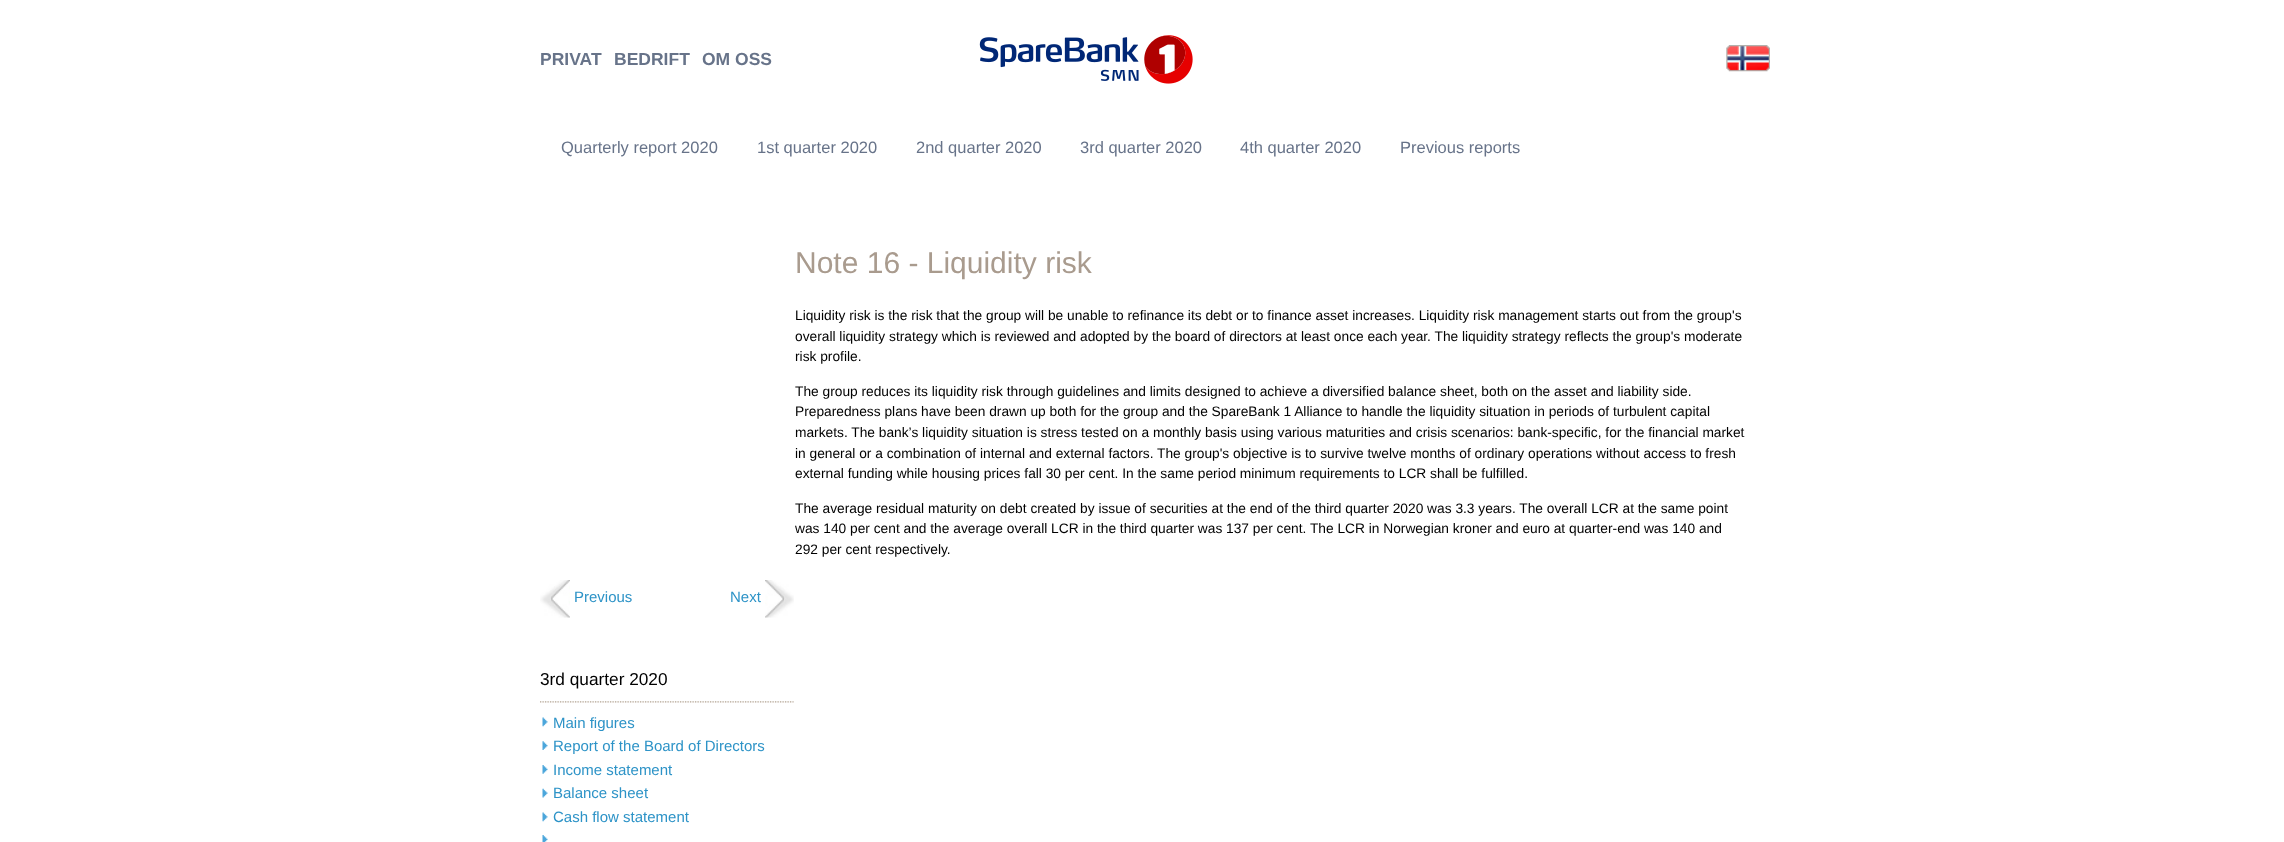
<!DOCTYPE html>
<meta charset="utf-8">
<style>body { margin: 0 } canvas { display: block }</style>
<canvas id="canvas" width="2284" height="842"></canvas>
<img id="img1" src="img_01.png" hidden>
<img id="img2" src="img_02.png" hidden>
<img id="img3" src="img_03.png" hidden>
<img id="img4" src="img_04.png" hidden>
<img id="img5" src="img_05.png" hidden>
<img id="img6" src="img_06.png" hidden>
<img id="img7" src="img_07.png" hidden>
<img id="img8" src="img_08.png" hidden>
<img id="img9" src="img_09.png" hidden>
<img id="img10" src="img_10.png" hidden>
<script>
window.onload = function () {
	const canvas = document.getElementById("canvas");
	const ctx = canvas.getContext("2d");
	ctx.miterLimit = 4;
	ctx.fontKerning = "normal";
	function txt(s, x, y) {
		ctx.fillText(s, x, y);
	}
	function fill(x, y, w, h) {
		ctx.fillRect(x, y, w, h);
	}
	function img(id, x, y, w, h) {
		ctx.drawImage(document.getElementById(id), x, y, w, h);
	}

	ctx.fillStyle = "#FFFFFF";
	fill(0, 0, 2284, 842);
	img("img1", 979, 35, 214, 49);
	img("img2", 1726, 45, 44, 27);
	img("img3", 540, 580, 30, 38);
	img("img4", 765, 580, 29, 38);
	img("img5", 540, 701, 254, 2);
	img("img6", 542, 717, 6, 10);
	img("img7", 542, 741, 6, 9);
	img("img8", 542, 765, 6, 9);
	img("img9", 542, 788, 6, 10);
	img("img6", 542, 812, 6, 10);
	img("img10", 542, 835, 6, 7);
	ctx.font = "bold 17.5px Liberation Sans";
	ctx.fillStyle = "#677389";
	txt("PRIVAT", 540, 65);
	txt("BEDRIFT", 614, 65);
	txt("OM OSS", 702, 65);
	ctx.font = "16.5px Liberation Sans";
	txt("Quarterly report 2020", 561, 153);
	txt("1st quarter 2020", 757, 153);
	txt("2nd quarter 2020", 916, 153);
	txt("3rd quarter 2020", 1080, 153);
	txt("4th quarter 2020", 1240, 153);
	txt("Previous reports", 1400, 153);
	ctx.font = "30px Liberation Sans";
	ctx.fillStyle = "#A99B8E";
	txt("Note 16 - Liquidity risk", 795, 273);
	ctx.font = "13.75px Liberation Sans";
	ctx.fillStyle = "#000000";
	txt("Liquidity risk is the risk that the group will be unable to refinance its debt or to finance asset increases. Liquidity risk management starts out from the group's", 795, 320);
	txt("overall liquidity strategy which is reviewed and adopted by the board of directors at least once each year. The liquidity strategy reflects the group's moderate", 795, 341);
	txt("risk profile.", 795, 361);
	txt("The group reduces its liquidity risk through guidelines and limits designed to achieve a diversified balance sheet, both on the asset and liability side.", 795, 396);
	txt("Preparedness plans have been drawn up both for the group and the SpareBank 1 Alliance to handle the liquidity situation in periods of turbulent capital", 795, 416);
	txt("markets. The bank’s liquidity situation is stress tested on a monthly basis using various maturities and crisis scenarios: bank-specific, for the financial market", 795, 437);
	txt("in general or a combination of internal and external factors. The group's objective is to survive twelve months of ordinary operations without access to fresh", 795, 458);
	txt("external funding while housing prices fall 30 per cent. In the same period minimum requirements to LCR shall be fulfilled.", 795, 478);
	txt("The average residual maturity on debt created by issue of securities at the end of the third quarter 2020 was 3.3 years. The overall LCR at the same point", 795, 513);
	txt("was 140 per cent and the average overall LCR in the third quarter was 137 per cent. The LCR in Norwegian kroner and euro at quarter-end was 140 and", 795, 533);
	txt("292 per cent respectively.", 795, 554);
	ctx.font = "15px Liberation Sans";
	ctx.fillStyle = "#2D93C7";
	txt("Previous", 574, 602);
	txt("Next", 730, 602);
	ctx.font = "17.25px Liberation Sans";
	ctx.fillStyle = "#000000";
	txt("3rd quarter 2020", 540, 685);
	ctx.font = "15px Liberation Sans";
	ctx.fillStyle = "#2D93C7";
	txt("Main figures", 553, 728);
	txt("Report of the Board of Directors", 553, 751);
	txt("Income statement", 553, 775);
	txt("Balance sheet", 553, 798);
	txt("Cash flow statement", 553, 822);
};
</script>
